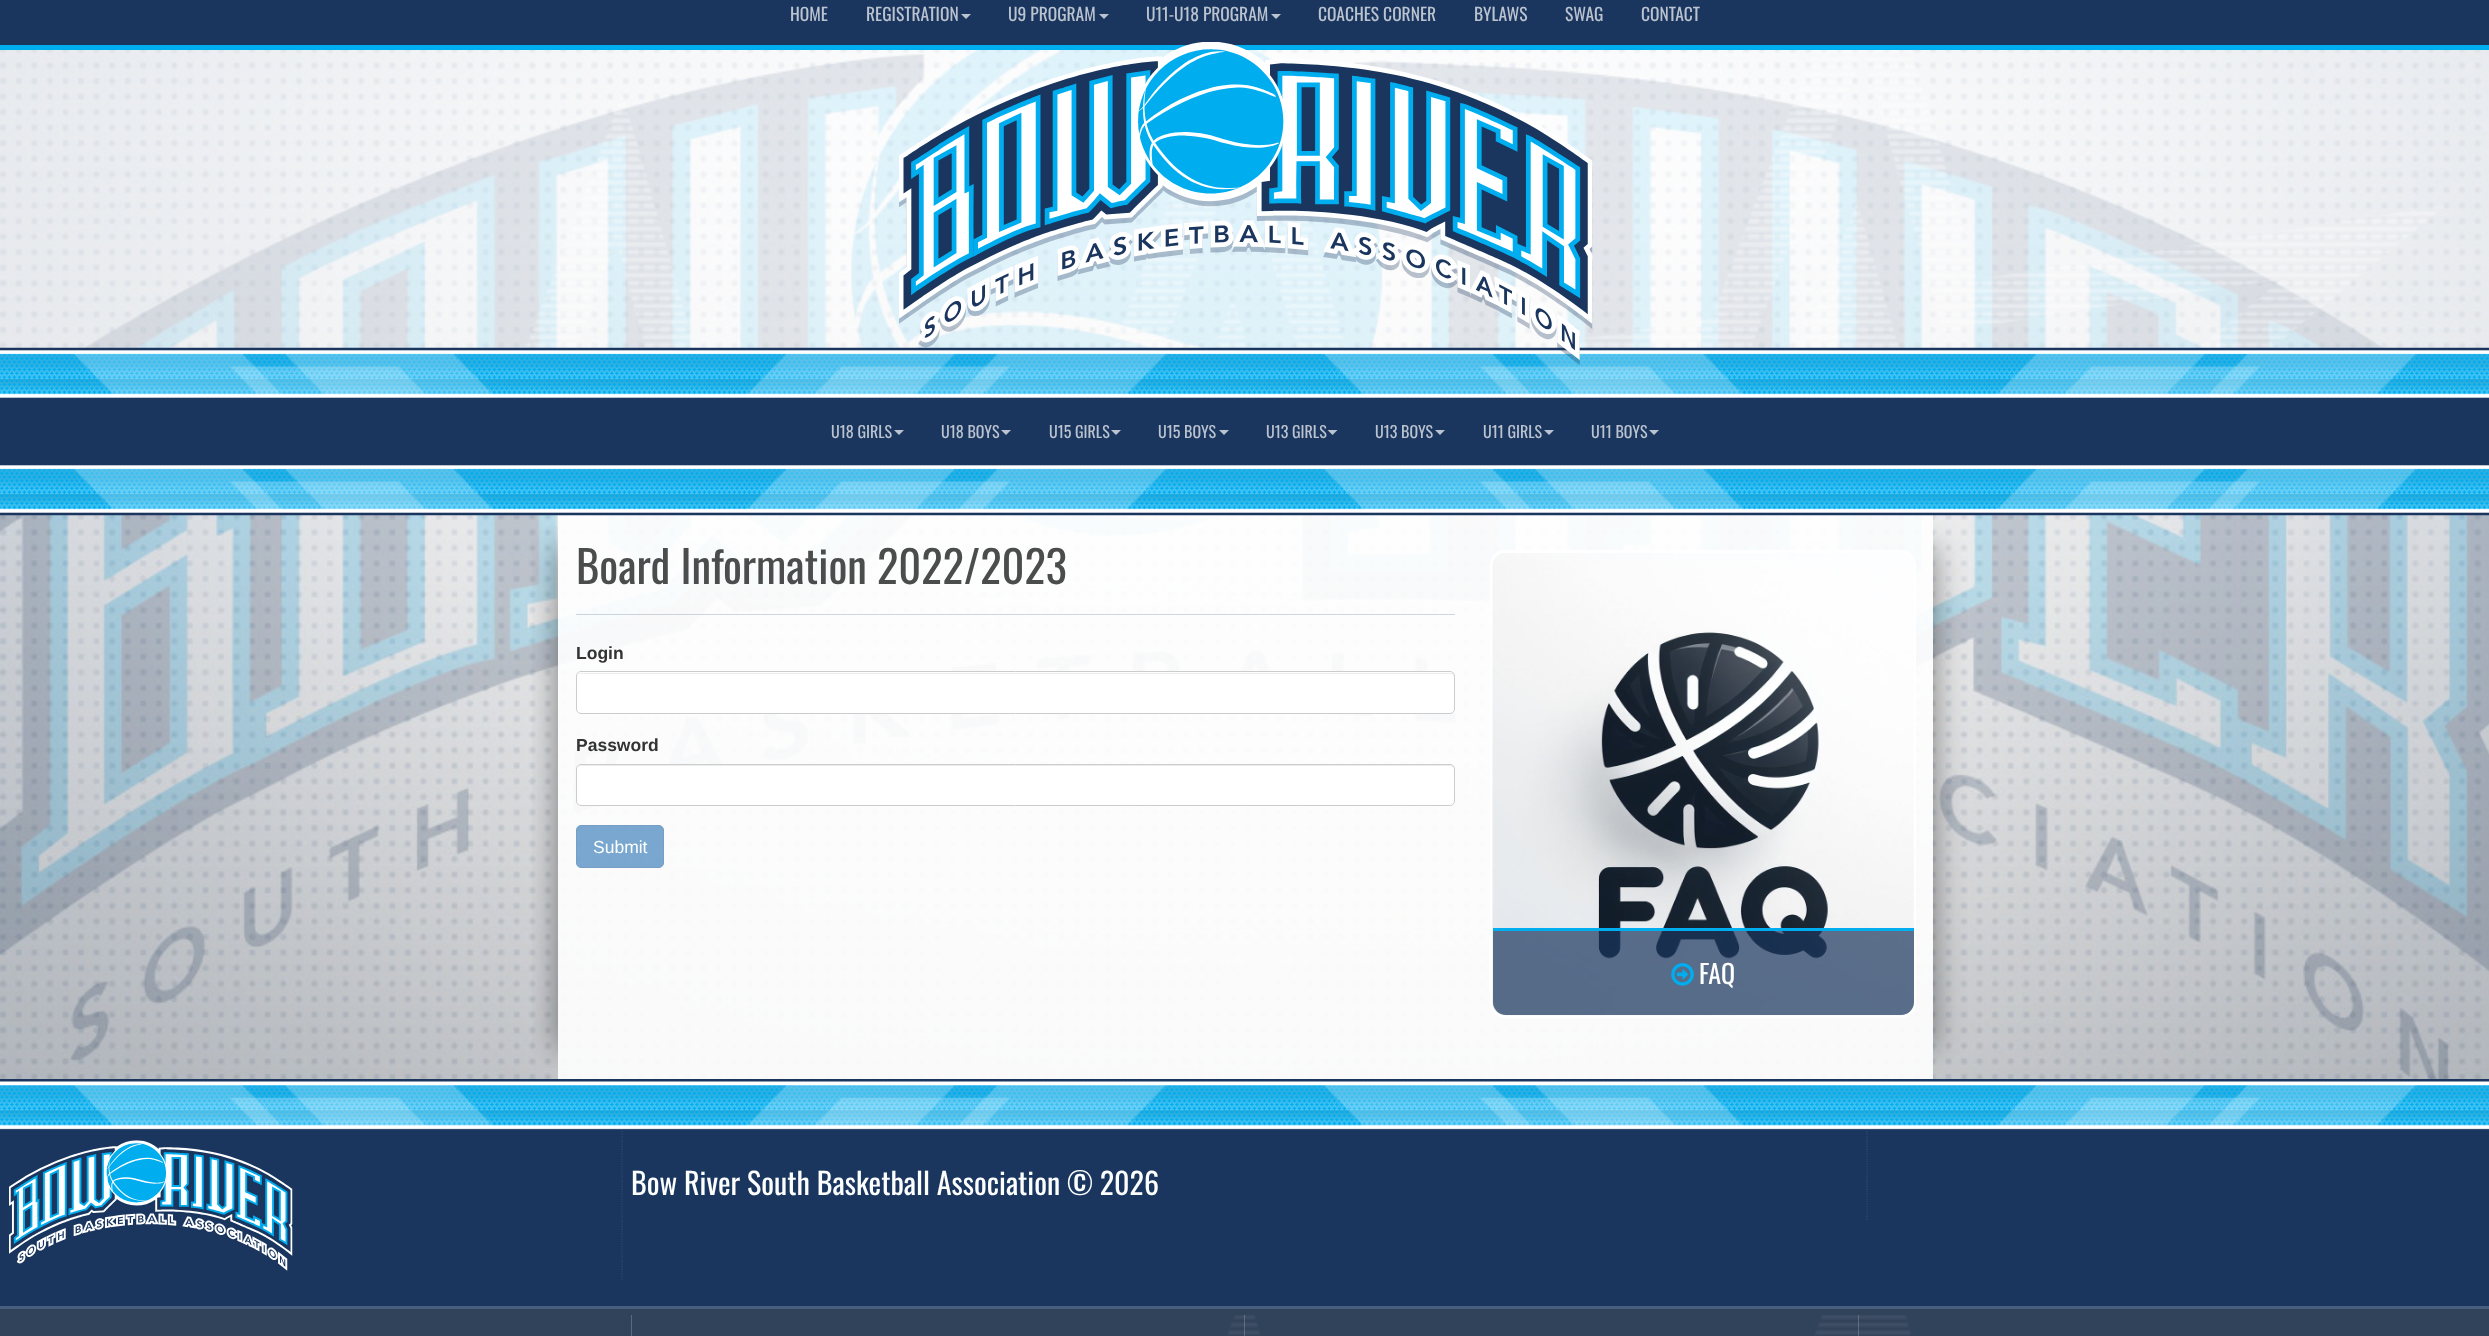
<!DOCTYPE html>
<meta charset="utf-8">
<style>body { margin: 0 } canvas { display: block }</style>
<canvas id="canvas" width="2489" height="1336"></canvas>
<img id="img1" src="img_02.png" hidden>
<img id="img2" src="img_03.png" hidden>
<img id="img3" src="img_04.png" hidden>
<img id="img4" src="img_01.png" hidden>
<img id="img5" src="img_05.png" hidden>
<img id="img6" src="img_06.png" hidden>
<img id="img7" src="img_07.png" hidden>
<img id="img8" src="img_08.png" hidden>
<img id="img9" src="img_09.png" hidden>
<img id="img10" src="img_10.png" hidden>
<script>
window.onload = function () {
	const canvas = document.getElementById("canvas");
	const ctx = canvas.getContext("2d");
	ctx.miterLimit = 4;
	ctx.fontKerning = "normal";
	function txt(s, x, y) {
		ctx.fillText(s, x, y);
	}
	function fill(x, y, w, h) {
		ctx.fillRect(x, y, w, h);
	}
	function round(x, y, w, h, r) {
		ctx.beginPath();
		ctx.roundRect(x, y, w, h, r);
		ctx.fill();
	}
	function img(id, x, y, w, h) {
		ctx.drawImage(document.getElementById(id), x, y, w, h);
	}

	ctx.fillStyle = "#FFFFFF";
	fill(0, 0, 2489, 1336);
	ctx.fillStyle = "#1A365E";
	fill(0, 0, 2489, 45);
	ctx.fillStyle = "#00ADEF";
	fill(0, 45, 2489, 5);
	ctx.fillStyle = "#BAC3CF";
	ctx.beginPath();
	ctx.moveTo(961, 14);
	ctx.lineTo(971, 14);
	ctx.lineTo(966, 19);
	ctx.closePath();
	ctx.fill();
	ctx.beginPath();
	ctx.moveTo(1099, 14);
	ctx.lineTo(1109, 14);
	ctx.lineTo(1104, 19);
	ctx.closePath();
	ctx.fill();
	ctx.beginPath();
	ctx.moveTo(1271, 14);
	ctx.lineTo(1281, 14);
	ctx.lineTo(1276, 19);
	ctx.closePath();
	ctx.fill();
	img("img1", 0, 50, 2489, 1029);
	img("img2", 0, 50, 2489, 298);
	ctx.fillStyle = "#00ADEF";
	fill(0, 353, 2489, 42);
	img("img3", 0, 347, 2489, 53);
	img("img4", 899, 42, 694, 323);
	ctx.fillStyle = "#1A365E";
	fill(0, 400, 2489, 63);
	ctx.fillStyle = "#BAC3CF";
	ctx.beginPath();
	ctx.moveTo(894, 430);
	ctx.lineTo(904, 430);
	ctx.lineTo(899, 435);
	ctx.closePath();
	ctx.fill();
	ctx.beginPath();
	ctx.moveTo(1001, 430);
	ctx.lineTo(1011, 430);
	ctx.lineTo(1006, 435);
	ctx.closePath();
	ctx.fill();
	ctx.beginPath();
	ctx.moveTo(1111, 430);
	ctx.lineTo(1121, 430);
	ctx.lineTo(1116, 435);
	ctx.closePath();
	ctx.fill();
	ctx.beginPath();
	ctx.moveTo(1219, 430);
	ctx.lineTo(1229, 430);
	ctx.lineTo(1224, 435);
	ctx.closePath();
	ctx.fill();
	ctx.beginPath();
	ctx.moveTo(1327.5, 430);
	ctx.lineTo(1337.5, 430);
	ctx.lineTo(1332.5, 435);
	ctx.closePath();
	ctx.fill();
	ctx.beginPath();
	ctx.moveTo(1435, 430);
	ctx.lineTo(1445, 430);
	ctx.lineTo(1440, 435);
	ctx.closePath();
	ctx.fill();
	ctx.beginPath();
	ctx.moveTo(1544, 430);
	ctx.lineTo(1554, 430);
	ctx.lineTo(1549, 435);
	ctx.closePath();
	ctx.fill();
	ctx.beginPath();
	ctx.moveTo(1649, 430);
	ctx.lineTo(1659, 430);
	ctx.lineTo(1654, 435);
	ctx.closePath();
	ctx.fill();
	ctx.save();
	ctx.beginPath();
	ctx.rect(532, 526, 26, 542);
	ctx.clip();
	ctx.fillStyle = "rgba(0, 0, 0, 0.45)";
	ctx.filter = "blur(15.5px)";
	ctx.beginPath();
	ctx.rect(558, 546, 1312, 502);
	ctx.fill();
	ctx.filter = "none";
	ctx.restore();
	ctx.save();
	ctx.beginPath();
	ctx.moveTo(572, 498);
	ctx.lineTo(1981, 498);
	ctx.lineTo(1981, 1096);
	ctx.lineTo(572, 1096);
	ctx.closePath();
	ctx.moveTo(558, 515);
	ctx.lineTo(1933, 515);
	ctx.lineTo(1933, 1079);
	ctx.lineTo(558, 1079);
	ctx.closePath();
	ctx.clip("evenodd");
	ctx.fillStyle = "rgba(0, 0, 0, 0.45)";
	ctx.filter = "blur(15.5px)";
	ctx.beginPath();
	ctx.rect(620, 546, 1313, 502);
	ctx.fill();
	ctx.filter = "none";
	ctx.restore();
	ctx.fillStyle = "#00ADEF";
	fill(0, 468, 2489, 42);
	ctx.fillStyle = "rgba(255, 255, 255, 0.9)";
	fill(558, 515, 1375, 564);
	img("img5", 0, 463, 2489, 53);
	ctx.fillStyle = "rgba(26, 54, 94, 0.2)";
	fill(576, 614, 879, 1);
	ctx.fillStyle = "#FFFFFF";
	round(576, 671, 879, 43, 5);
	ctx.fillStyle = "#ECECEC";
	ctx.beginPath();
	ctx.moveTo(581, 674);
	ctx.lineTo(1450, 674);
	ctx.bezierCurveTo(1452, 674, 1454, 675, 1454, 678);
	ctx.bezierCurveTo(1454, 675, 1453, 673, 1450, 673);
	ctx.lineTo(582, 673);
	ctx.bezierCurveTo(579, 673, 578, 675, 578, 678);
	ctx.bezierCurveTo(578, 675, 579, 674, 581, 674);
	ctx.closePath();
	ctx.fill();
	ctx.beginPath();
	ctx.roundRect(576.5, 671.5, 878, 42, 4.5);
	ctx.strokeStyle = "#CCCCCC";
	ctx.stroke();
	ctx.fillStyle = "#FFFFFF";
	round(576, 764, 879, 42, 5);
	ctx.fillStyle = "#ECECEC";
	ctx.beginPath();
	ctx.moveTo(581, 766);
	ctx.lineTo(1450, 766);
	ctx.bezierCurveTo(1452, 766, 1454, 768, 1454, 770);
	ctx.bezierCurveTo(1454, 767, 1453, 765, 1450, 765);
	ctx.lineTo(582, 765);
	ctx.bezierCurveTo(579, 765, 578, 767, 578, 770);
	ctx.bezierCurveTo(578, 768, 579, 766, 581, 766);
	ctx.closePath();
	ctx.fill();
	ctx.beginPath();
	ctx.roundRect(576.5, 764.5, 878, 41, 4.5);
	ctx.stroke();
	ctx.fillStyle = "rgba(51, 122, 183, 0.65)";
	ctx.beginPath();
	ctx.roundRect(576.5, 825.5, 87, 42, 4.5);
	ctx.fill();
	ctx.strokeStyle = "#769FC3";
	ctx.stroke();
	ctx.beginPath();
	ctx.roundRect(1491.5, 551.5, 423, 465, 13.5);
	ctx.strokeStyle = "rgba(255, 255, 255, 0.9)";
	ctx.lineWidth = 3;
	ctx.stroke();
	img("img6", 1492, 553, 422, 463);
	ctx.fillStyle = "rgba(26, 54, 94, 0.7)";
	ctx.beginPath();
	ctx.roundRect(1493, 928, 421, 87, [0, 0, 13, 13]);
	ctx.fill();
	ctx.fillStyle = "#00ADEF";
	fill(1493, 928, 421, 3);
	img("img7", 1671, 963, 23, 23);
	fill(0, 1085, 2489, 41);
	img("img8", 0, 1079, 2489, 52);
	ctx.fillStyle = "#1A365E";
	fill(0, 1131, 2489, 175);
	ctx.beginPath();
	ctx.moveTo(622, 1131);
	ctx.lineTo(622, 1281);
	ctx.strokeStyle = "#314A6E";
	ctx.lineWidth = 1.2;
	ctx.setLineDash([1.25, 1.25]);
	ctx.stroke();
	img("img9", 9, 1140, 284, 131);
	ctx.beginPath();
	ctx.moveTo(1867, 1131);
	ctx.lineTo(1867, 1220);
	ctx.stroke();
	ctx.fillStyle = "#485E7E";
	fill(0, 1306, 2489, 3);
	ctx.fillStyle = "#122642";
	fill(0, 1309, 2489, 27);
	img("img10", 0, 1309, 2489, 27);
	ctx.fillStyle = "#5B697C";
	fill(631, 1315, 1, 21);
	ctx.fillStyle = "rgba(255, 255, 255, 0.2)";
	fill(1244, 1315, 1, 21);
	fill(1858, 1315, 1, 21);
	ctx.font = "17.5px Oswald";
	ctx.fillStyle = "#BAC3CF";
	txt("HOME", 790, 21);
	txt("REGISTRATION", 866, 21);
	txt("U9 PROGRAM", 1008, 21);
	txt("U11-U18 PROGRAM", 1146, 21);
	txt("COACHES CORNER", 1318, 21);
	txt("BYLAWS", 1474, 21);
	txt("SWAG", 1565, 21);
	txt("CONTACT", 1641, 21);
	ctx.font = "16px Oswald";
	txt("U18 GIRLS", 831, 438);
	txt("U18 BOYS", 941, 438);
	txt("U15 GIRLS", 1049, 438);
	txt("U15 BOYS", 1158, 438);
	txt("U13 GIRLS", 1266, 438);
	txt("U13 BOYS", 1375, 438);
	txt("U11 GIRLS", 1483, 438);
	txt("U11 BOYS", 1591, 438);
	ctx.font = "44.5px Oswald";
	ctx.fillStyle = "#4B4C4C";
	txt("Board Information 2022/2023", 576, 584);
	ctx.font = "bold 17.5px Liberation Sans";
	ctx.fillStyle = "#333333";
	txt("Login", 576, 659);
	txt("Password", 576, 751);
	ctx.font = "17.5px Liberation Sans";
	ctx.fillStyle = "#FDFEFE";
	txt("Submit", 593, 853);
	ctx.font = "26px Oswald";
	txt("FAQ", 1699, 984);
	ctx.font = "30px Oswald";
	txt("Bow River South Basketball Association © 2026", 631, 1195);
};
</script>
